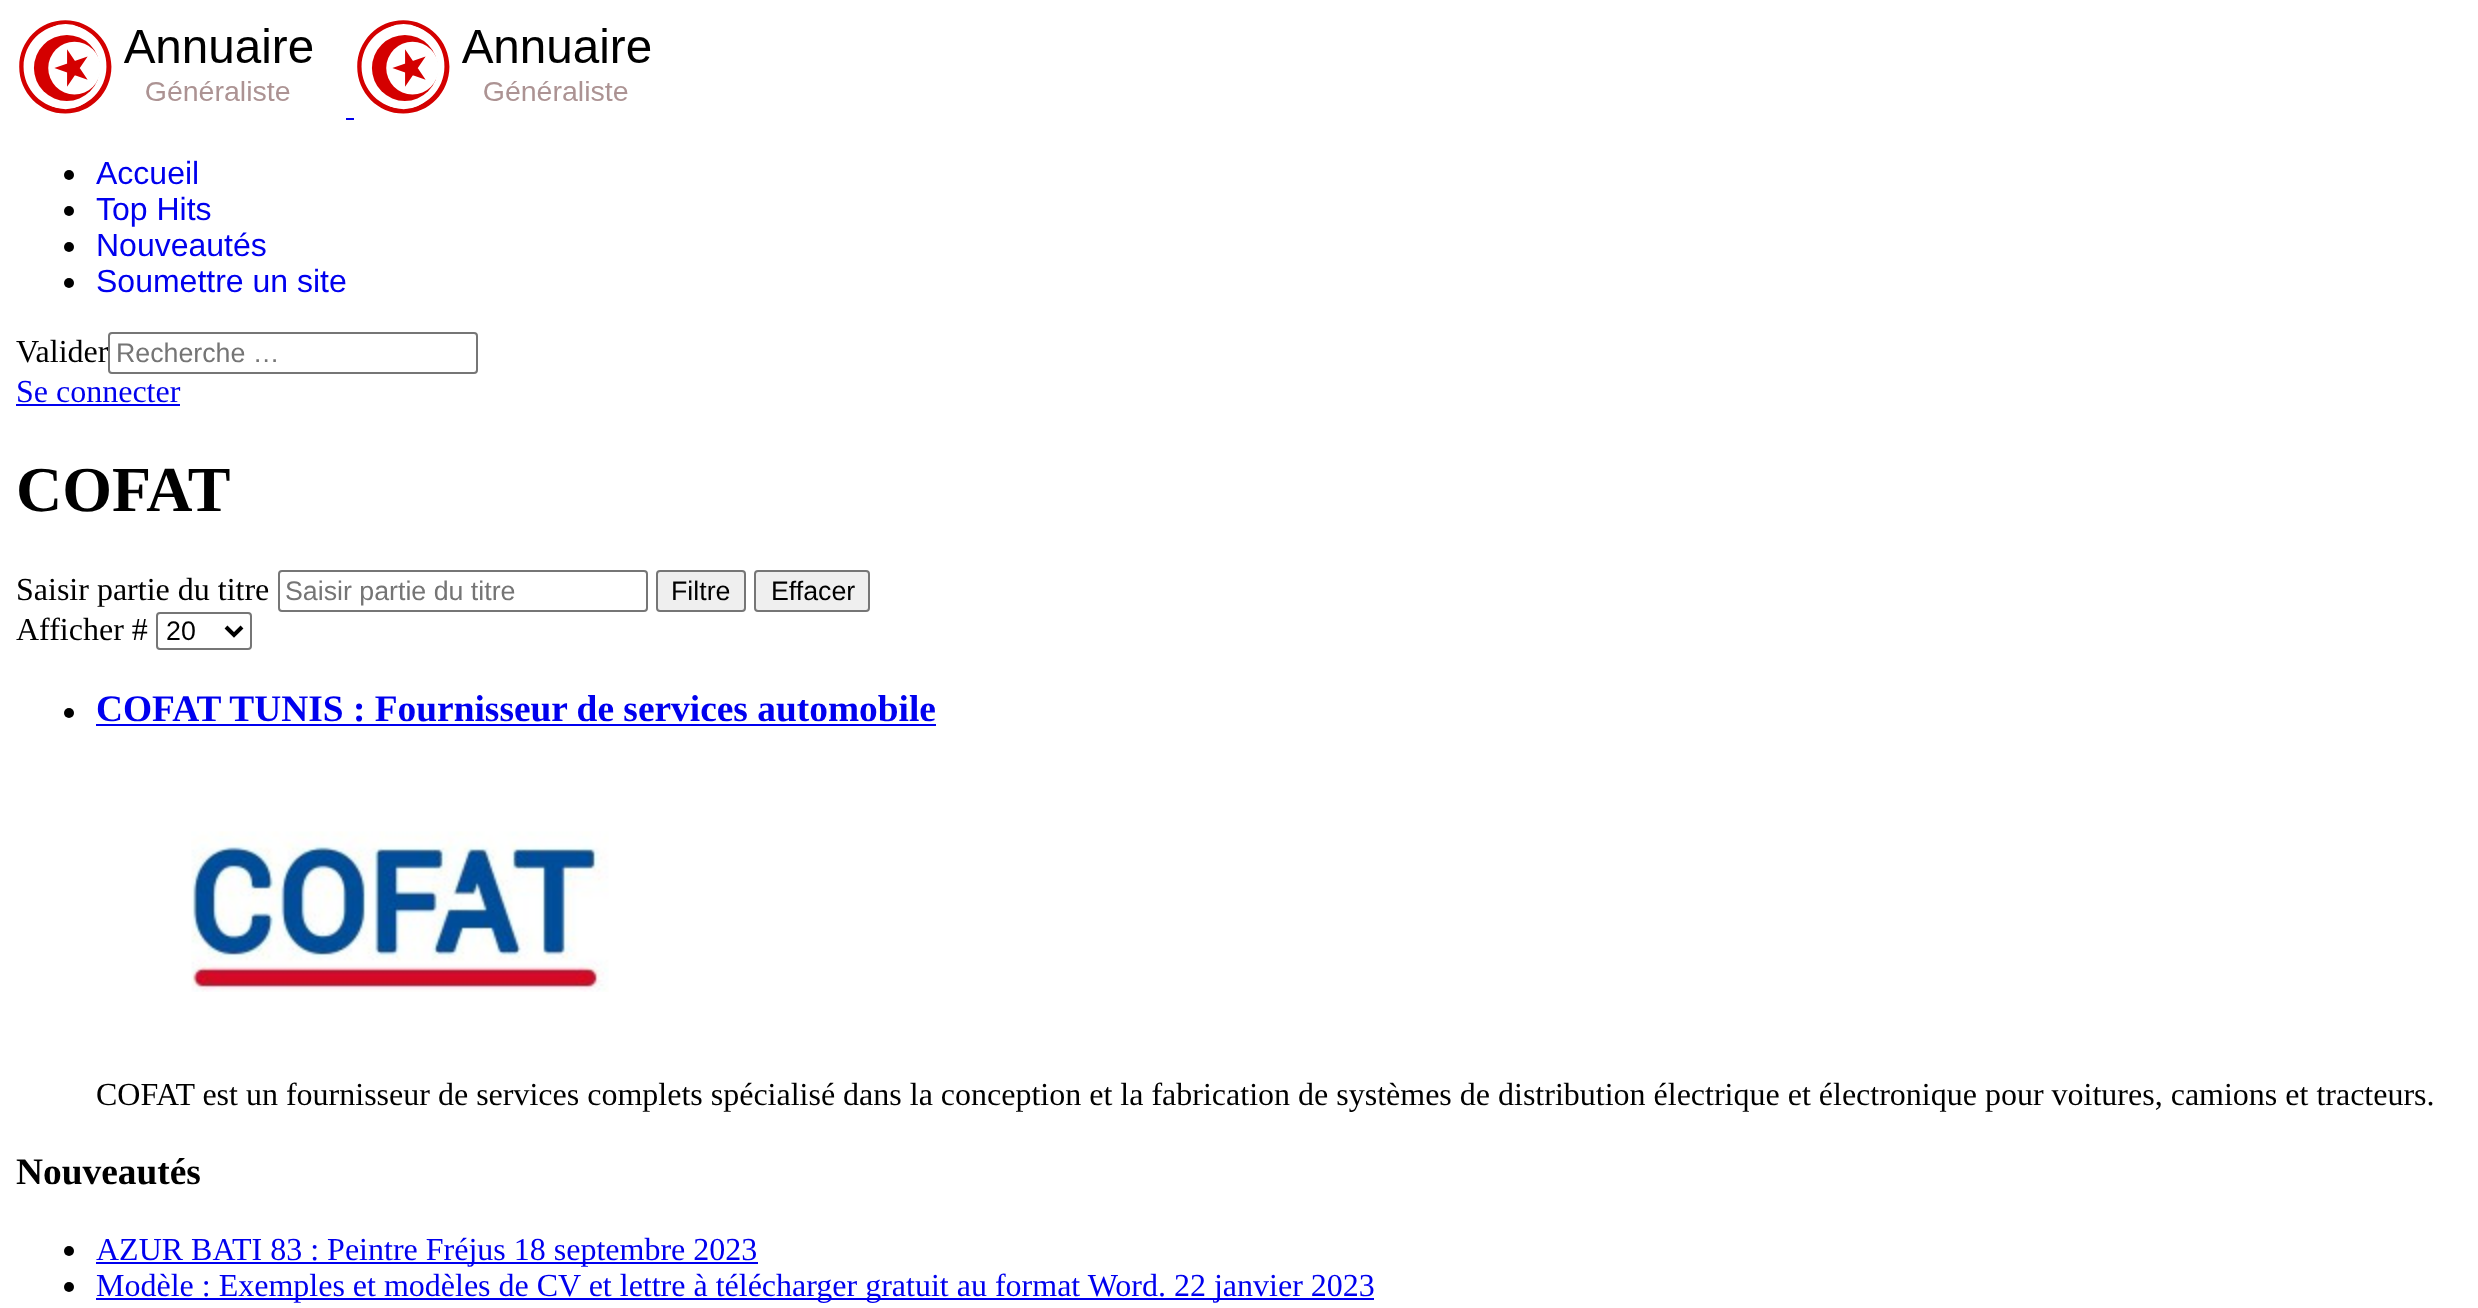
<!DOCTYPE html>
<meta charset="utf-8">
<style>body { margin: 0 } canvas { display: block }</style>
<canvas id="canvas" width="2478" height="1308"></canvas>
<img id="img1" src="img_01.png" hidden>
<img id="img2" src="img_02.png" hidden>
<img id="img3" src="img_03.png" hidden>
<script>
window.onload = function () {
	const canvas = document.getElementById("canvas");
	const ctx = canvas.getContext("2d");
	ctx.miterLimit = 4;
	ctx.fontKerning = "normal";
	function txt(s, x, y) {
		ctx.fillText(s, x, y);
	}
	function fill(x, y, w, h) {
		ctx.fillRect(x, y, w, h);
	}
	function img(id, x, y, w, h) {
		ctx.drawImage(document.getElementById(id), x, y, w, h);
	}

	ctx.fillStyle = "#FFFFFF";
	fill(0, 0, 2478, 1308);
	img("img1", 19, 20, 294, 94);
	img("img2", 357, 20, 294, 94);
	ctx.fillStyle = "#0000EE";
	fill(346, 118, 8, 2);
	ctx.fillStyle = "#000000";
	ctx.beginPath();
	ctx.arc(69, 175, 5, 0, Math.PI * 2);
	ctx.fill();
	ctx.beginPath();
	ctx.arc(69, 211, 5, 0, Math.PI * 2);
	ctx.fill();
	ctx.beginPath();
	ctx.arc(69, 247, 5, 0, Math.PI * 2);
	ctx.fill();
	ctx.beginPath();
	ctx.arc(69, 283, 5, 0, Math.PI * 2);
	ctx.fill();
	ctx.fillStyle = "#0000EE";
	fill(16, 404, 164, 2);
	ctx.beginPath();
	ctx.roundRect(279, 571, 368, 40, 3);
	ctx.strokeStyle = "#767676";
	ctx.lineWidth = 2;
	ctx.stroke();
	ctx.fillStyle = "#EFEFEF";
	ctx.beginPath();
	ctx.roundRect(657, 571, 88, 40, 3);
	ctx.fill();
	ctx.stroke();
	ctx.beginPath();
	ctx.roundRect(755, 571, 114, 40, 3);
	ctx.fill();
	ctx.stroke();
	ctx.beginPath();
	ctx.roundRect(157, 613, 94, 36, 3);
	ctx.stroke();
	ctx.beginPath();
	ctx.moveTo(226, 627);
	ctx.lineTo(234, 635);
	ctx.lineTo(242, 627);
	ctx.strokeStyle = "#000000";
	ctx.lineWidth = 4;
	ctx.stroke();
	ctx.fillStyle = "#000000";
	ctx.beginPath();
	ctx.arc(69, 713, 5, 0, Math.PI * 2);
	ctx.fill();
	ctx.fillStyle = "#0000EE";
	fill(96, 724, 840, 2);
	img("img3", 191, 831, 418, 161);
	ctx.fillStyle = "#000000";
	ctx.beginPath();
	ctx.arc(69, 1251, 5, 0, Math.PI * 2);
	ctx.fill();
	ctx.fillStyle = "#0000EE";
	fill(96, 1262, 662, 2);
	ctx.fillStyle = "#000000";
	ctx.beginPath();
	ctx.arc(69, 1287, 5, 0, Math.PI * 2);
	ctx.fill();
	ctx.fillStyle = "#0000EE";
	fill(96, 1298, 1278, 2);
	ctx.font = "32px Liberation Sans";
	txt("Accueil", 96, 184);
	txt("Top Hits", 96, 220);
	txt("Nouveautés", 96, 256);
	txt("Soumettre un site", 96, 292);
	ctx.font = "32px Liberation Serif";
	ctx.fillStyle = "#000000";
	txt("Valider", 16, 362);
	ctx.fillStyle = "#FFFFFF";
	ctx.beginPath();
	ctx.roundRect(109, 333, 368, 40, 3);
	ctx.fill();
	ctx.strokeStyle = "#767676";
	ctx.lineWidth = 2;
	ctx.stroke();
	ctx.font = "26.75px Liberation Sans";
	ctx.fillStyle = "#757575";
	txt("Recherche …", 116, 362);
	ctx.font = "32px Liberation Serif";
	ctx.fillStyle = "#0000EE";
	txt("Se connecter", 16, 402);
	ctx.font = "bold 64px Liberation Serif";
	ctx.fillStyle = "#000000";
	txt("COFAT", 16, 511);
	ctx.font = "32px Liberation Serif";
	txt("Saisir partie du titre", 16, 600);
	ctx.font = "26.75px Liberation Sans";
	ctx.fillStyle = "#757575";
	txt("Saisir partie du titre", 285, 600);
	ctx.fillStyle = "#000000";
	txt("Filtre", 671, 600);
	txt("Effacer", 771, 600);
	ctx.font = "32px Liberation Serif";
	txt("Afficher #", 16, 640);
	ctx.font = "26.75px Liberation Sans";
	txt("20", 166, 640);
	ctx.font = "bold 37.4px Liberation Serif";
	ctx.fillStyle = "#0000EE";
	txt("COFAT TUNIS : Fournisseur de services automobile", 96, 721);
	ctx.font = "32px Liberation Serif";
	ctx.fillStyle = "#000000";
	txt("COFAT est un fournisseur de services complets spécialisé dans la conception et la fabrication de systèmes de distribution électrique et électronique pour voitures, camions et tracteurs.", 96, 1105);
	ctx.font = "bold 37.4px Liberation Serif";
	txt("Nouveautés", 16, 1184);
	ctx.font = "32px Liberation Serif";
	ctx.fillStyle = "#0000EE";
	txt("AZUR BATI 83 : Peintre Fréjus 18 septembre 2023", 96, 1260);
	txt("Modèle : Exemples et modèles de CV et lettre à télécharger gratuit au format Word. 22 janvier 2023", 96, 1296);
};
</script>
